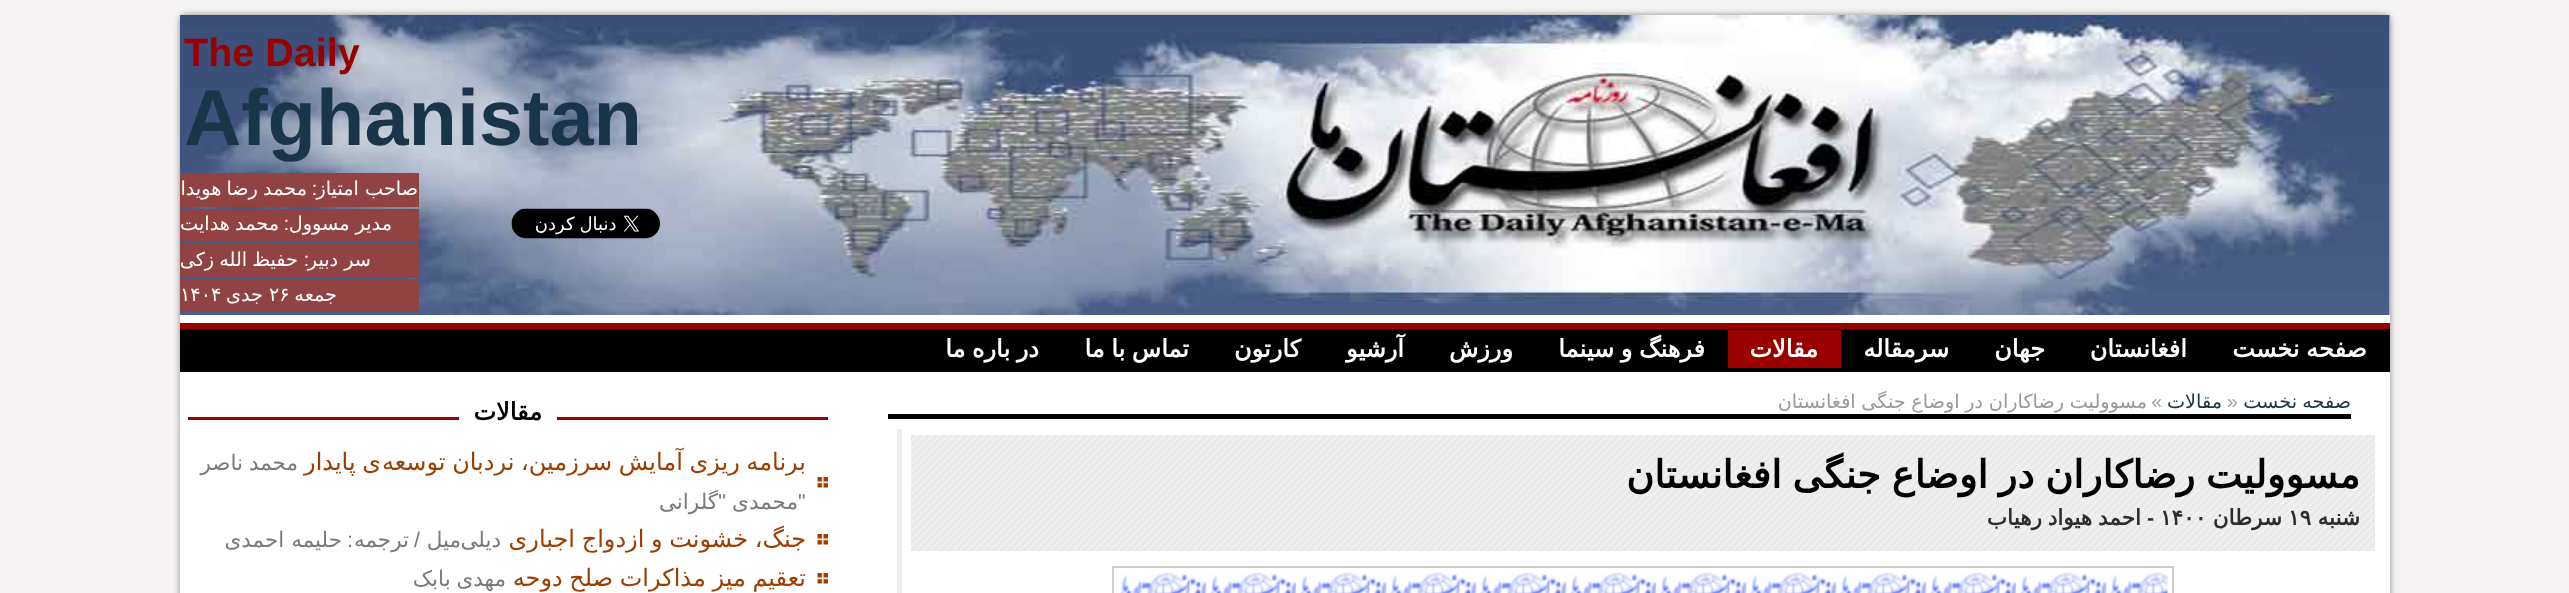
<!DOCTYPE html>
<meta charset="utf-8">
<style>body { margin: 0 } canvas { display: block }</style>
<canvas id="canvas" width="2569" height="593"></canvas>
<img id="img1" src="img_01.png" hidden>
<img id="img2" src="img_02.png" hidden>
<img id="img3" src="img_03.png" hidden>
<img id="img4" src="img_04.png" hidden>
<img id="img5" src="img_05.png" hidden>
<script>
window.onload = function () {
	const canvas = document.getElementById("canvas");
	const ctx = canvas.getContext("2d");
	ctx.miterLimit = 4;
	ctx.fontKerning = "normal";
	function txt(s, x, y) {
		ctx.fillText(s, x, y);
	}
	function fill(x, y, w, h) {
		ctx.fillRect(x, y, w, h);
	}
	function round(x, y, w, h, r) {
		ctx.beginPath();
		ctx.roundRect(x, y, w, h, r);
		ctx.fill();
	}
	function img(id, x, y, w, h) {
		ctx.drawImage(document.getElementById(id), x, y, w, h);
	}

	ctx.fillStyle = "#F5F3F3";
	fill(0, 0, 2569, 593);
	ctx.fillStyle = "#888888";
	ctx.filter = "blur(3px)";
	ctx.beginPath();
	ctx.roundRect(180, 15, 2210, 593, 6);
	ctx.fill();
	ctx.filter = "none";
	ctx.fillStyle = "#FFFFFF";
	round(180, 15, 2210, 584, 6);
	img("img1", 180, 15, 2210, 300);
	ctx.fillStyle = "#914242";
	fill(180, 173, 239, 34);
	fill(180, 209, 239, 33);
	fill(180, 243, 239, 35);
	fill(180, 279, 239, 33);
	img("img2", 511, 208, 149, 31);
	ctx.fillStyle = "#000000";
	fill(180, 329, 2210, 43);
	ctx.fillStyle = "#990000";
	fill(180, 323, 2210, 6);
	fill(1728, 330, 113, 38);
	ctx.fillStyle = "#000000";
	fill(888, 414, 1463, 5);
	ctx.fillStyle = "#EFEFEF";
	fill(897, 429, 5, 164);
	ctx.fillStyle = "#EAEAEA";
	fill(911, 435, 1464, 116);
	img("img3", 911, 435, 1463, 115);
	ctx.strokeStyle = "#CCCCCC";
	ctx.lineWidth = 2;
	ctx.strokeRect(1113, 567, 1060, 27);
	img("img4", 1120, 572, 1048, 21);
	ctx.fillStyle = "#990000";
	fill(188, 417, 640, 3);
	ctx.fillStyle = "#FFFFFF";
	fill(459, 417, 98, 3);
	img("img5", 817, 477, 11, 11);
	img("img5", 817, 534, 11, 11);
	img("img5", 817, 573, 11, 11);
	ctx.font = "bold 39.5px Liberation Sans";
	ctx.fillStyle = "#990000";
	txt("The Daily", 184, 66);
	ctx.font = "bold 79.25px Liberation Sans";
	ctx.fillStyle = "#183647";
	txt("Afghanistan", 184, 145);
	ctx.direction = "rtl";
	ctx.font = "19.25px DejaVu Sans";
	ctx.fillStyle = "#FFFFFF";
	txt("صاحب امتیاز", 418, 195);
	ctx.font = "19.25px Liberation Sans";
	txt(":", 317, 195);
	ctx.wordSpacing = "-1px";
	ctx.font = "19.25px DejaVu Sans";
	txt("محمد رضا هویدا", 307, 195);
	ctx.wordSpacing = "0px";
	txt("مدیر مسوول", 392, 230);
	ctx.font = "19.25px Liberation Sans";
	txt(":", 289, 230);
	ctx.wordSpacing = "-1px";
	ctx.font = "19.25px DejaVu Sans";
	txt("محمد هدایت", 279, 230);
	ctx.wordSpacing = "0px";
	txt("سر دبیر", 371, 266);
	ctx.font = "19.25px Liberation Sans";
	txt(":", 309, 266);
	ctx.wordSpacing = "-1px";
	ctx.font = "19.25px DejaVu Sans";
	txt("حفیظ الله زکی", 298, 266);
	ctx.wordSpacing = "0px";
	txt("جمعه", 337, 301);
	ctx.direction = "ltr";
	txt("۲۶", 269, 301);
	ctx.direction = "rtl";
	txt("جدی", 263, 301);
	ctx.direction = "ltr";
	txt("۱۴۰۴", 180, 301);
	ctx.wordSpacing = "-1px";
	ctx.direction = "rtl";
	ctx.font = "bold 24px DejaVu Sans";
	txt("صفحه نخست", 2367, 357);
	ctx.wordSpacing = "0px";
	txt("افغانستان", 2187, 357);
	txt("جهان", 2045, 357);
	txt("سرمقاله", 1949, 357);
	txt("مقالات", 1818, 357);
	ctx.wordSpacing = "-1px";
	txt("فرهنگ و سینما", 1705, 357);
	ctx.wordSpacing = "0px";
	txt("ورزش", 1513, 357);
	txt("آرشیو", 1404, 357);
	txt("کارتون", 1301, 357);
	ctx.wordSpacing = "-1px";
	txt("تماس با ما", 1189, 357);
	txt("در باره ما", 1039, 357);
	ctx.font = "19.25px DejaVu Sans";
	ctx.fillStyle = "#183647";
	txt("صفحه نخست", 2351, 408);
	ctx.wordSpacing = "0px";
	ctx.direction = "ltr";
	ctx.font = "19.25px Liberation Sans";
	ctx.fillStyle = "#999999";
	txt("»", 2227, 408);
	ctx.direction = "rtl";
	ctx.font = "19.25px DejaVu Sans";
	ctx.fillStyle = "#183647";
	txt("مقالات", 2222, 408);
	ctx.font = "19.25px Liberation Sans";
	ctx.fillStyle = "#999999";
	txt("»", 2162, 408);
	ctx.wordSpacing = "-0.5px";
	ctx.font = "19.25px DejaVu Sans";
	txt("مسوولیت رضاکاران در اوضاع جنگی افغانستان", 2147, 408);
	ctx.wordSpacing = "-1.5px";
	ctx.font = "bold 38.4px DejaVu Sans";
	ctx.fillStyle = "#000000";
	txt("مسوولیت رضاکاران در اوضاع جنگی افغانستان", 2360, 488);
	ctx.wordSpacing = "0px";
	ctx.font = "bold 21.5px DejaVu Sans";
	ctx.fillStyle = "#2D2D2D";
	txt("شنبه", 2360, 525);
	ctx.direction = "ltr";
	txt("۱۹", 2288, 525);
	ctx.direction = "rtl";
	txt("سرطان", 2282, 525);
	ctx.direction = "ltr";
	txt("۱۴۰۰", 2160, 525);
	ctx.font = "bold 21.5px Liberation Sans";
	txt("-", 2147, 525);
	ctx.wordSpacing = "-1px";
	ctx.direction = "rtl";
	ctx.font = "bold 21.5px DejaVu Sans";
	txt("احمد هیواد رهیاب", 2141, 525);
	ctx.wordSpacing = "0px";
	ctx.font = "bold 24px DejaVu Sans";
	ctx.fillStyle = "#000000";
	txt("مقالات", 542, 420);
	ctx.wordSpacing = "-1px";
	ctx.font = "24px DejaVu Sans";
	ctx.fillStyle = "#9B3E00";
	txt("برنامه ریزی آمایش سرزمین، نردبان توسعه", 806, 470);
	txt("ی پایدار", 381, 470);
	ctx.font = "21.5px DejaVu Sans";
	ctx.fillStyle = "#7A7A7A";
	txt("محمد ناصر", 298, 470);
	ctx.wordSpacing = "0px";
	ctx.direction = "ltr";
	ctx.font = "21.5px Liberation Sans";
	txt("\"", 798, 509);
	ctx.direction = "rtl";
	txt("\"", 726, 509);
	ctx.font = "21.5px DejaVu Sans";
	txt("گلرانی", 718, 509);
	txt("محمدی", 798, 509);
	ctx.wordSpacing = "-1px";
	ctx.font = "24px DejaVu Sans";
	ctx.fillStyle = "#9B3E00";
	txt("جنگ، خشونت و ازدواج اجباری", 806, 547);
	ctx.wordSpacing = "0px";
	ctx.font = "21.5px DejaVu Sans";
	ctx.fillStyle = "#7A7A7A";
	txt("دیلی", 501, 547);
	txt("میل", 461, 547);
	ctx.font = "21.5px Liberation Sans";
	txt("/", 420, 547);
	ctx.font = "21.5px DejaVu Sans";
	txt("ترجمه", 409, 547);
	ctx.font = "21.5px Liberation Sans";
	txt(":", 353, 547);
	ctx.font = "21.5px DejaVu Sans";
	txt("حلیمه احمدی", 342, 547);
	ctx.wordSpacing = "-1px";
	ctx.font = "24px DejaVu Sans";
	ctx.fillStyle = "#9B3E00";
	txt("تعقیم میز مذاکرات صلحِ دوحه", 806, 586);
	ctx.font = "21.5px DejaVu Sans";
	ctx.fillStyle = "#7A7A7A";
	txt("مهدی بابک", 506, 586);
};
</script>
